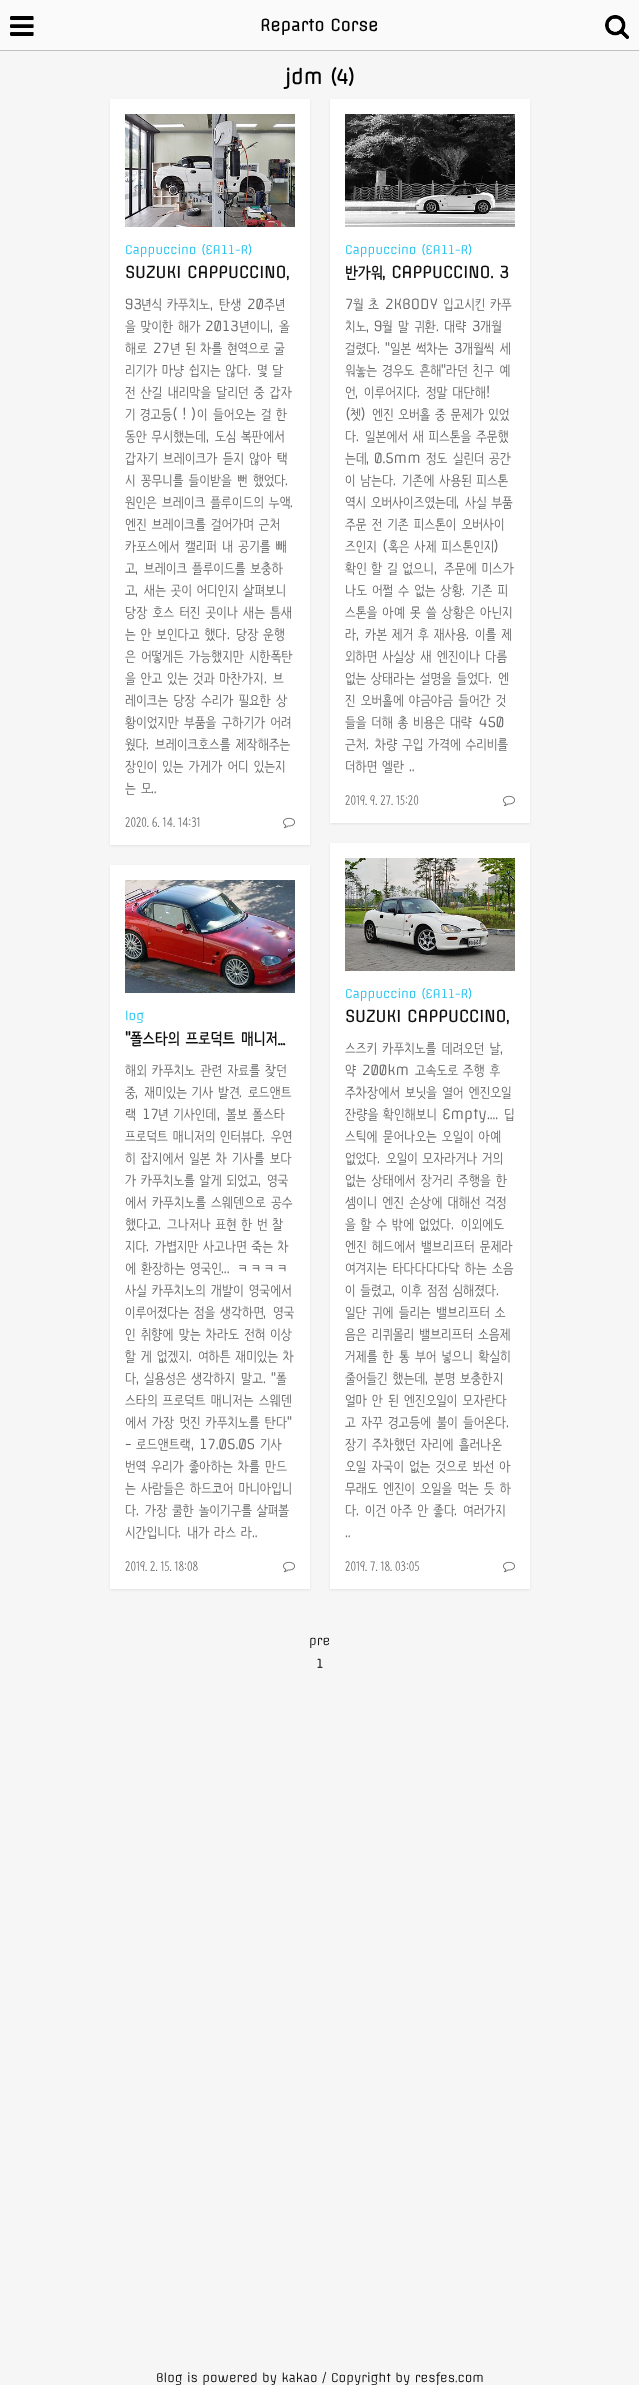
<!DOCTYPE html>
<meta charset="utf-8">
<style>body { margin: 0 } canvas { display: block }</style>
<canvas id="canvas" width="639" height="2385"></canvas>
<img id="img1" src="img_01.png" hidden>
<img id="img2" src="img_02.png" hidden>
<img id="img3" src="img_03.png" hidden>
<img id="img4" src="img_04.png" hidden>
<img id="img5" src="img_05.png" hidden>
<img id="img6" src="img_06.png" hidden>
<img id="img7" src="img_07.png" hidden>
<script>
window.onload = function () {
	const canvas = document.getElementById("canvas");
	const ctx = canvas.getContext("2d");
	ctx.miterLimit = 4;
	ctx.fontKerning = "normal";
	function txt(s, x, y) {
		ctx.fillText(s, x, y);
	}
	function fill(x, y, w, h) {
		ctx.fillRect(x, y, w, h);
	}
	function img(id, x, y, w, h) {
		ctx.drawImage(document.getElementById(id), x, y, w, h);
	}

	ctx.fillStyle = "#F6F6F6";
	fill(0, 0, 639, 2385);
	ctx.fillStyle = "#C0C0C0";
	fill(0, 50, 639, 1);
	ctx.fillStyle = "#FAFAFA";
	fill(0, 0, 639, 50);
	img("img1", 10, 16, 24, 20);
	img("img2", 605, 15, 24, 24);
	ctx.fillStyle = "rgba(0, 0, 0, 0.08)";
	ctx.filter = "blur(1px)";
	ctx.beginPath();
	ctx.rect(110, 100, 200, 746);
	ctx.fill();
	ctx.filter = "none";
	ctx.fillStyle = "#FFFFFF";
	fill(110, 99, 200, 746);
	img("img3", 125, 114, 170, 113);
	img("img4", 283, 817, 12, 12);
	ctx.fillStyle = "rgba(0, 0, 0, 0.08)";
	ctx.filter = "blur(1px)";
	ctx.beginPath();
	ctx.rect(330, 100, 200, 724);
	ctx.fill();
	ctx.filter = "none";
	ctx.fillStyle = "#FFFFFF";
	fill(330, 99, 200, 724);
	img("img5", 345, 114, 170, 113);
	img("img4", 503, 795, 12, 12);
	ctx.fillStyle = "rgba(0, 0, 0, 0.08)";
	ctx.filter = "blur(1px)";
	ctx.beginPath();
	ctx.rect(110, 866, 200, 724);
	ctx.fill();
	ctx.filter = "none";
	ctx.fillStyle = "#FFFFFF";
	fill(110, 865, 200, 724);
	img("img6", 125, 880, 170, 113);
	img("img4", 283, 1561, 12, 12);
	ctx.fillStyle = "rgba(0, 0, 0, 0.08)";
	ctx.filter = "blur(1px)";
	ctx.beginPath();
	ctx.rect(330, 844, 200, 746);
	ctx.fill();
	ctx.filter = "none";
	ctx.fillStyle = "#FFFFFF";
	fill(330, 843, 200, 746);
	img("img7", 345, 858, 170, 113);
	img("img4", 503, 1561, 12, 12);
	ctx.font = "bold 16px Offside";
	ctx.fillStyle = "#000000";
	txt("Reparto Corse", 260, 31);
	ctx.font = "bold 19.5px Offside";
	txt("jdm (4)", 285, 84);
	ctx.font = "12px Offside";
	ctx.fillStyle = "#19BFEF";
	txt("Cappuccino (EA11-R)", 125, 254);
	ctx.font = "bold 16px Offside";
	ctx.fillStyle = "#101010";
	txt("SUZUKI CAPPUCCINO,", 125, 278);
	ctx.font = "14px Offside";
	ctx.fillStyle = "#666666";
	txt("93", 125, 309);
	ctx.wordSpacing = "1px";
	ctx.font = "14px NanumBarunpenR";
	txt("년식 카푸치노", 141, 309);
	ctx.wordSpacing = "0px";
	ctx.font = "14px Offside";
	txt(",", 210, 309);
	ctx.font = "14px NanumBarunpenR";
	txt("탄생", 219, 309);
	ctx.font = "14px Offside";
	txt("20", 247, 309);
	ctx.font = "14px NanumBarunpenR";
	txt("주년", 264, 309);
	ctx.wordSpacing = "1px";
	txt("을 맞이한 해가", 125, 331);
	ctx.wordSpacing = "0px";
	ctx.font = "14px Offside";
	txt("2013", 205, 331);
	ctx.font = "14px NanumBarunpenR";
	txt("년이니", 239, 331);
	ctx.font = "14px Offside";
	txt(",", 270, 331);
	ctx.font = "14px NanumBarunpenR";
	txt("올", 279, 331);
	txt("해로", 125, 353);
	ctx.font = "14px Offside";
	txt("27", 153, 353);
	ctx.wordSpacing = "1px";
	ctx.font = "14px NanumBarunpenR";
	txt("년 된 차를 현역으로 굴", 170, 353);
	txt("리기가 마냥 쉽지는 않다", 125, 375);
	ctx.wordSpacing = "0px";
	ctx.font = "14px Offside";
	txt(".", 248, 375);
	ctx.wordSpacing = "1px";
	ctx.font = "14px NanumBarunpenR";
	txt("몇 달", 257, 375);
	ctx.wordSpacing = "1.5px";
	txt("전 산길 내리막을 달리던 중 갑자", 125, 397);
	ctx.wordSpacing = "0px";
	txt("기", 125, 419);
	txt("경고등", 140, 419);
	ctx.font = "14px Offside";
	txt("( ! )", 172, 419);
	ctx.font = "14px NanumBarunpenR";
	txt("이", 197, 419);
	txt("들어오는", 213, 419);
	txt("걸", 261, 419);
	txt("한", 276, 419);
	ctx.wordSpacing = "1px";
	txt("동안 무시했는데", 125, 441);
	ctx.wordSpacing = "0px";
	ctx.font = "14px Offside";
	txt(",", 206, 441);
	ctx.wordSpacing = "1px";
	ctx.font = "14px NanumBarunpenR";
	txt("도심 복판에서", 215, 441);
	ctx.wordSpacing = "1.5px";
	txt("갑자기 브레이크가 듣지 않아 택", 125, 463);
	txt("시 꽁무니를 들이받을 뻔 했었다", 125, 485);
	ctx.wordSpacing = "0px";
	ctx.font = "14px Offside";
	txt(".", 285, 485);
	ctx.wordSpacing = "1.5px";
	ctx.font = "14px NanumBarunpenR";
	txt("원인은 브레이크 플루이드의 누액", 125, 507);
	ctx.wordSpacing = "0px";
	ctx.font = "14px Offside";
	txt(".", 290, 507);
	ctx.wordSpacing = "1.5px";
	ctx.font = "14px NanumBarunpenR";
	txt("엔진 브레이크를 걸어가며 근처", 125, 529);
	txt("카포스에서 캘리퍼 내 공기를 빼", 125, 551);
	ctx.wordSpacing = "0px";
	txt("고", 125, 573);
	ctx.font = "14px Offside";
	txt(",", 135, 573);
	ctx.wordSpacing = "1px";
	ctx.font = "14px NanumBarunpenR";
	txt("브레이크 플루이드를 보충하", 144, 573);
	ctx.wordSpacing = "0px";
	txt("고", 125, 595);
	ctx.font = "14px Offside";
	txt(",", 135, 595);
	ctx.wordSpacing = "1px";
	ctx.font = "14px NanumBarunpenR";
	txt("새는 곳이 어디인지 살펴보니", 144, 595);
	ctx.wordSpacing = "1.5px";
	txt("당장 호스 터진 곳이나 새는 틈새", 125, 617);
	ctx.wordSpacing = "1px";
	txt("는 안 보인다고 했다", 125, 639);
	ctx.wordSpacing = "0px";
	ctx.font = "14px Offside";
	txt(".", 227, 639);
	ctx.wordSpacing = "1px";
	ctx.font = "14px NanumBarunpenR";
	txt("당장 운행", 236, 639);
	ctx.wordSpacing = "1.5px";
	txt("은 어떻게든 가능했지만 시한폭탄", 125, 661);
	ctx.wordSpacing = "1px";
	txt("을 안고 있는 것과 마찬가지", 125, 683);
	ctx.wordSpacing = "0px";
	ctx.font = "14px Offside";
	txt(".", 264, 683);
	ctx.font = "14px NanumBarunpenR";
	txt("브", 273, 683);
	ctx.wordSpacing = "1.5px";
	txt("레이크는 당장 수리가 필요한 상", 125, 705);
	txt("황이었지만 부품을 구하기가 어려", 125, 727);
	ctx.wordSpacing = "0px";
	txt("웠다", 125, 749);
	ctx.font = "14px Offside";
	txt(".", 146, 749);
	ctx.wordSpacing = "1px";
	ctx.font = "14px NanumBarunpenR";
	txt("브레이크호스를 제작해주는", 155, 749);
	ctx.wordSpacing = "1.5px";
	txt("장인이 있는 가게가 어디 있는지", 125, 771);
	txt("는 모", 125, 793);
	ctx.wordSpacing = "0px";
	ctx.font = "14px Offside";
	txt("..", 151, 793);
	ctx.font = "12px NanumBarunpenR";
	txt("2020. 6. 14. 14:31", 125, 826);
	ctx.font = "12px Offside";
	ctx.fillStyle = "#19BFEF";
	txt("Cappuccino (EA11-R)", 345, 254);
	ctx.font = "bold 16px NanumBarunpenR";
	ctx.fillStyle = "#101010";
	txt("반가워", 345, 278);
	ctx.font = "bold 16px Offside";
	txt(", CAPPUCCINO. 3", 382, 278);
	ctx.font = "14px Offside";
	ctx.fillStyle = "#666666";
	txt("7", 345, 309);
	ctx.wordSpacing = "1px";
	ctx.font = "14px NanumBarunpenR";
	txt("월 초", 353, 309);
	ctx.wordSpacing = "0px";
	ctx.font = "14px Offside";
	txt("2KBODY", 385, 309);
	ctx.wordSpacing = "1px";
	ctx.font = "14px NanumBarunpenR";
	txt("입고시킨 카푸", 443, 309);
	ctx.wordSpacing = "0px";
	txt("치노", 345, 331);
	ctx.font = "14px Offside";
	txt(", 9", 366, 331);
	ctx.font = "14px NanumBarunpenR";
	txt("월", 382, 331);
	txt("말", 398, 331);
	txt("귀환", 414, 331);
	ctx.font = "14px Offside";
	txt(".", 436, 331);
	ctx.font = "14px NanumBarunpenR";
	txt("대략", 444, 331);
	ctx.font = "14px Offside";
	txt("3", 472, 331);
	ctx.font = "14px NanumBarunpenR";
	txt("개월", 480, 331);
	txt("걸렸다", 345, 353);
	ctx.font = "14px Offside";
	txt(". \"", 377, 353);
	ctx.font = "14px NanumBarunpenR";
	txt("일본", 390, 353);
	txt("썩차는", 416, 353);
	ctx.font = "14px Offside";
	txt("3", 454, 353);
	ctx.font = "14px NanumBarunpenR";
	txt("개월씩", 462, 353);
	txt("세", 500, 353);
	ctx.wordSpacing = "1.5px";
	txt("워놓는 경우도 흔해", 345, 375);
	ctx.wordSpacing = "0px";
	ctx.font = "14px Offside";
	txt("\"", 441, 375);
	ctx.wordSpacing = "1.5px";
	ctx.font = "14px NanumBarunpenR";
	txt("라던 친구 예", 446, 375);
	ctx.wordSpacing = "0px";
	txt("언", 345, 397);
	ctx.font = "14px Offside";
	txt(",", 355, 397);
	ctx.font = "14px NanumBarunpenR";
	txt("이루어지다", 364, 397);
	ctx.font = "14px Offside";
	txt(".", 417, 397);
	ctx.wordSpacing = "1px";
	ctx.font = "14px NanumBarunpenR";
	txt("정말 대단해", 426, 397);
	ctx.wordSpacing = "0px";
	ctx.font = "14px Offside";
	txt("!", 486, 397);
	txt("(", 345, 419);
	ctx.font = "14px NanumBarunpenR";
	txt("쳇", 350, 419);
	ctx.font = "14px Offside";
	txt(")", 361, 419);
	ctx.wordSpacing = "1px";
	ctx.font = "14px NanumBarunpenR";
	txt("엔진 오버홀 중 문제가 있었", 372, 419);
	ctx.wordSpacing = "0px";
	txt("다", 345, 441);
	ctx.font = "14px Offside";
	txt(".", 356, 441);
	ctx.wordSpacing = "1px";
	ctx.font = "14px NanumBarunpenR";
	txt("일본에서 새 피스톤을 주문했", 365, 441);
	ctx.wordSpacing = "0px";
	txt("는데", 345, 463);
	ctx.font = "14px Offside";
	txt(", 0.5mm", 366, 463);
	ctx.font = "14px NanumBarunpenR";
	txt("정도", 426, 463);
	txt("실린더", 453, 463);
	txt("공간", 489, 463);
	ctx.wordSpacing = "1px";
	txt("이 남는다", 345, 485);
	ctx.wordSpacing = "0px";
	ctx.font = "14px Offside";
	txt(".", 393, 485);
	ctx.wordSpacing = "1px";
	ctx.font = "14px NanumBarunpenR";
	txt("기존에 사용된 피스톤", 402, 485);
	txt("역시 오버사이즈였는데", 345, 507);
	ctx.wordSpacing = "0px";
	ctx.font = "14px Offside";
	txt(",", 456, 507);
	ctx.wordSpacing = "1px";
	ctx.font = "14px NanumBarunpenR";
	txt("사실 부품", 465, 507);
	ctx.wordSpacing = "1.5px";
	txt("주문 전 기존 피스톤이 오버사이", 345, 529);
	ctx.wordSpacing = "0px";
	txt("즈인지", 345, 551);
	ctx.font = "14px Offside";
	txt("(", 382, 551);
	ctx.wordSpacing = "1px";
	ctx.font = "14px NanumBarunpenR";
	txt("혹은 사제 피스톤인지", 388, 551);
	ctx.wordSpacing = "0px";
	ctx.font = "14px Offside";
	txt(")", 494, 551);
	ctx.wordSpacing = "1px";
	ctx.font = "14px NanumBarunpenR";
	txt("확인 할 길 없으니", 345, 573);
	ctx.wordSpacing = "0px";
	ctx.font = "14px Offside";
	txt(",", 434, 573);
	ctx.wordSpacing = "1px";
	ctx.font = "14px NanumBarunpenR";
	txt("주문에 미스가", 444, 573);
	ctx.wordSpacing = "1.5px";
	txt("나도 어쩔 수 없는 상황", 345, 595);
	ctx.wordSpacing = "0px";
	ctx.font = "14px Offside";
	txt(".", 462, 595);
	ctx.wordSpacing = "1.5px";
	ctx.font = "14px NanumBarunpenR";
	txt("기존 피", 471, 595);
	txt("스톤을 아예 못 쓸 상황은 아닌지", 345, 617);
	ctx.wordSpacing = "0px";
	txt("라", 345, 639);
	ctx.font = "14px Offside";
	txt(",", 356, 639);
	ctx.wordSpacing = "1px";
	ctx.font = "14px NanumBarunpenR";
	txt("카본 제거 후 재사용", 365, 639);
	ctx.wordSpacing = "0px";
	ctx.font = "14px Offside";
	txt(".", 466, 639);
	ctx.wordSpacing = "1px";
	ctx.font = "14px NanumBarunpenR";
	txt("이를 제", 475, 639);
	ctx.wordSpacing = "1.5px";
	txt("외하면 사실상 새 엔진이나 다름", 345, 661);
	ctx.wordSpacing = "1px";
	txt("없는 상태라는 설명을 들었다", 345, 683);
	ctx.wordSpacing = "0px";
	ctx.font = "14px Offside";
	txt(".", 489, 683);
	ctx.font = "14px NanumBarunpenR";
	txt("엔", 498, 683);
	ctx.wordSpacing = "1.5px";
	txt("진 오버홀에 야금야금 들어간 것", 345, 705);
	ctx.wordSpacing = "1px";
	txt("들을 더해 총 비용은 대략", 345, 727);
	ctx.wordSpacing = "0px";
	ctx.font = "14px Offside";
	txt("450", 479, 727);
	ctx.font = "14px NanumBarunpenR";
	txt("근처", 345, 749);
	ctx.font = "14px Offside";
	txt(".", 366, 749);
	ctx.wordSpacing = "1px";
	ctx.font = "14px NanumBarunpenR";
	txt("차량 구입 가격에 수리비를", 375, 749);
	txt("더하면 엘란", 345, 771);
	ctx.wordSpacing = "0px";
	ctx.font = "14px Offside";
	txt("..", 409, 771);
	ctx.font = "12px NanumBarunpenR";
	txt("2019. 9. 27. 15:20", 345, 804);
	ctx.font = "12px Offside";
	ctx.fillStyle = "#19BFEF";
	txt("log", 125, 1020);
	ctx.font = "bold 16px Offside";
	ctx.fillStyle = "#101010";
	txt("\"", 125, 1044);
	ctx.wordSpacing = "2px";
	ctx.font = "bold 16px NanumBarunpenR";
	txt("폴스타의 프로덕트 매니저...", 130, 1044);
	ctx.wordSpacing = "1.5px";
	ctx.font = "14px NanumBarunpenR";
	ctx.fillStyle = "#666666";
	txt("해외 카푸치노 관련 자료를 찾던", 125, 1075);
	ctx.wordSpacing = "0px";
	txt("중", 125, 1097);
	ctx.font = "14px Offside";
	txt(",", 135, 1097);
	ctx.wordSpacing = "1px";
	ctx.font = "14px NanumBarunpenR";
	txt("재미있는 기사 발견", 144, 1097);
	ctx.wordSpacing = "0px";
	ctx.font = "14px Offside";
	txt(".", 239, 1097);
	ctx.font = "14px NanumBarunpenR";
	txt("로드앤트", 248, 1097);
	txt("랙", 125, 1119);
	ctx.font = "14px Offside";
	txt("17", 142, 1119);
	ctx.wordSpacing = "1px";
	ctx.font = "14px NanumBarunpenR";
	txt("년 기사인데", 158, 1119);
	ctx.wordSpacing = "0px";
	ctx.font = "14px Offside";
	txt(",", 217, 1119);
	ctx.wordSpacing = "1px";
	ctx.font = "14px NanumBarunpenR";
	txt("볼보 폴스타", 226, 1119);
	txt("프로덕트 매니저의 인터뷰다", 125, 1141);
	ctx.wordSpacing = "0px";
	ctx.font = "14px Offside";
	txt(".", 262, 1141);
	ctx.font = "14px NanumBarunpenR";
	txt("우연", 271, 1141);
	ctx.wordSpacing = "1.5px";
	txt("히 잡지에서 일본 차 기사를 보다", 125, 1163);
	ctx.wordSpacing = "1px";
	txt("가 카푸치노를 알게 되었고", 125, 1185);
	ctx.wordSpacing = "0px";
	ctx.font = "14px Offside";
	txt(",", 258, 1185);
	ctx.font = "14px NanumBarunpenR";
	txt("영국", 267, 1185);
	ctx.wordSpacing = "1.5px";
	txt("에서 카푸치노를 스웨덴으로 공수", 125, 1207);
	ctx.wordSpacing = "0px";
	txt("했다고", 125, 1229);
	ctx.font = "14px Offside";
	txt(".", 158, 1229);
	ctx.wordSpacing = "1px";
	ctx.font = "14px NanumBarunpenR";
	txt("그나저나 표현 한 번 찰", 167, 1229);
	ctx.wordSpacing = "0px";
	txt("지다", 125, 1251);
	ctx.font = "14px Offside";
	txt(".", 146, 1251);
	ctx.wordSpacing = "1px";
	ctx.font = "14px NanumBarunpenR";
	txt("가볍지만 사고나면 죽는 차", 155, 1251);
	txt("에 환장하는 영국인", 125, 1273);
	ctx.wordSpacing = "0px";
	ctx.font = "14px NanumGothic";
	txt("ㅋㅋㅋㅋ", 236, 1273);
	ctx.font = "14px Offside";
	txt("...", 221, 1273);
	ctx.wordSpacing = "1.5px";
	ctx.font = "14px NanumBarunpenR";
	txt("사실 카푸치노의 개발이 영국에서", 125, 1295);
	ctx.wordSpacing = "1px";
	txt("이루어졌다는 점을 생각하면", 125, 1317);
	ctx.wordSpacing = "0px";
	ctx.font = "14px Offside";
	txt(",", 263, 1317);
	ctx.font = "14px NanumBarunpenR";
	txt("영국", 273, 1317);
	ctx.wordSpacing = "1.5px";
	txt("인 취향에 맞는 차라도 전혀 이상", 125, 1339);
	ctx.wordSpacing = "1px";
	txt("할 게 없겠지", 125, 1361);
	ctx.wordSpacing = "0px";
	ctx.font = "14px Offside";
	txt(".", 189, 1361);
	ctx.wordSpacing = "1px";
	ctx.font = "14px NanumBarunpenR";
	txt("여하튼 재미있는 차", 198, 1361);
	ctx.wordSpacing = "0px";
	txt("다", 125, 1383);
	ctx.font = "14px Offside";
	txt(",", 136, 1383);
	ctx.font = "14px NanumBarunpenR";
	txt("실용성은", 144, 1383);
	txt("생각하지", 191, 1383);
	txt("말고", 241, 1383);
	ctx.font = "14px Offside";
	txt(". \"", 263, 1383);
	ctx.font = "14px NanumBarunpenR";
	txt("폴", 276, 1383);
	ctx.wordSpacing = "1.5px";
	txt("스타의 프로덕트 매니저는 스웨덴", 125, 1405);
	txt("에서 가장 멋진 카푸치노를 탄다", 125, 1427);
	ctx.wordSpacing = "0px";
	ctx.font = "14px Offside";
	txt("\"", 287, 1427);
	txt("-", 125, 1449);
	ctx.font = "14px NanumBarunpenR";
	txt("로드앤트랙", 136, 1449);
	ctx.font = "14px Offside";
	txt(", 17.05.05", 191, 1449);
	ctx.font = "14px NanumBarunpenR";
	txt("기사", 260, 1449);
	ctx.wordSpacing = "1.5px";
	txt("번역 우리가 좋아하는 차를 만드", 125, 1471);
	txt("는 사람들은 하드코어 마니아입니", 125, 1493);
	ctx.wordSpacing = "0px";
	txt("다", 125, 1515);
	ctx.font = "14px Offside";
	txt(".", 136, 1515);
	ctx.wordSpacing = "1px";
	ctx.font = "14px NanumBarunpenR";
	txt("가장 쿨한 놀이기구를 살펴볼", 145, 1515);
	ctx.wordSpacing = "0px";
	txt("시간입니다", 125, 1537);
	ctx.font = "14px Offside";
	txt(".", 178, 1537);
	ctx.wordSpacing = "1px";
	ctx.font = "14px NanumBarunpenR";
	txt("내가 라스 라", 187, 1537);
	ctx.wordSpacing = "0px";
	ctx.font = "14px Offside";
	txt("..", 252, 1537);
	ctx.font = "12px NanumBarunpenR";
	txt("2019. 2. 15. 18:08", 125, 1570);
	ctx.font = "12px Offside";
	ctx.fillStyle = "#19BFEF";
	txt("Cappuccino (EA11-R)", 345, 998);
	ctx.font = "bold 16px Offside";
	ctx.fillStyle = "#101010";
	txt("SUZUKI CAPPUCCINO,", 345, 1022);
	ctx.wordSpacing = "1.5px";
	ctx.font = "14px NanumBarunpenR";
	ctx.fillStyle = "#666666";
	txt("스즈키 카푸치노를 데려오던 날", 345, 1053);
	ctx.wordSpacing = "0px";
	ctx.font = "14px Offside";
	txt(",", 500, 1053);
	ctx.font = "14px NanumBarunpenR";
	txt("약", 345, 1075);
	ctx.font = "14px Offside";
	txt("200km", 362, 1075);
	ctx.wordSpacing = "1px";
	ctx.font = "14px NanumBarunpenR";
	txt("고속도로 주행 후", 415, 1075);
	ctx.wordSpacing = "1.5px";
	txt("주차장에서 보닛을 열어 엔진오일", 345, 1097);
	ctx.wordSpacing = "1px";
	txt("잔량을 확인해보니", 345, 1119);
	ctx.wordSpacing = "0px";
	ctx.font = "14px Offside";
	txt("Empty....", 442, 1119);
	ctx.font = "14px NanumBarunpenR";
	txt("딥", 504, 1119);
	ctx.wordSpacing = "1.5px";
	txt("스틱에 묻어나오는 오일이 아예", 345, 1141);
	ctx.wordSpacing = "0px";
	txt("없었다", 345, 1163);
	ctx.font = "14px Offside";
	txt(".", 377, 1163);
	ctx.wordSpacing = "1px";
	ctx.font = "14px NanumBarunpenR";
	txt("오일이 모자라거나 거의", 386, 1163);
	ctx.wordSpacing = "1.5px";
	txt("없는 상태에서 장거리 주행을 한", 345, 1185);
	txt("셈이니 엔진 손상에 대해선 걱정", 345, 1207);
	ctx.wordSpacing = "1px";
	txt("을 할 수 밖에 없었다", 345, 1229);
	ctx.wordSpacing = "0px";
	ctx.font = "14px Offside";
	txt(".", 451, 1229);
	ctx.font = "14px NanumBarunpenR";
	txt("이외에도", 461, 1229);
	ctx.wordSpacing = "1.5px";
	txt("엔진 헤드에서 밸브리프터 문제라", 345, 1251);
	txt("여겨지는 타다다다다닥 하는 소음", 345, 1273);
	ctx.wordSpacing = "1px";
	txt("이 들렸고", 345, 1295);
	ctx.wordSpacing = "0px";
	ctx.font = "14px Offside";
	txt(",", 392, 1295);
	ctx.wordSpacing = "1px";
	ctx.font = "14px NanumBarunpenR";
	txt("이후 점점 심해졌다", 401, 1295);
	ctx.wordSpacing = "0px";
	ctx.font = "14px Offside";
	txt(".", 496, 1295);
	ctx.wordSpacing = "1.5px";
	ctx.font = "14px NanumBarunpenR";
	txt("일단 귀에 들리는 밸브리프터 소", 345, 1317);
	txt("음은 리퀴몰리 밸브리프터 소음제", 345, 1339);
	txt("거제를 한 통 부어 넣으니 확실히", 345, 1361);
	ctx.wordSpacing = "1px";
	txt("줄어들긴 했는데", 345, 1383);
	ctx.wordSpacing = "0px";
	ctx.font = "14px Offside";
	txt(",", 425, 1383);
	ctx.wordSpacing = "1px";
	ctx.font = "14px NanumBarunpenR";
	txt("분명 보충한지", 434, 1383);
	ctx.wordSpacing = "1.5px";
	txt("얼마 안 된 엔진오일이 모자란다", 345, 1405);
	txt("고 자꾸 경고등에 불이 들어온다", 345, 1427);
	ctx.wordSpacing = "0px";
	ctx.font = "14px Offside";
	txt(".", 506, 1427);
	ctx.wordSpacing = "1.5px";
	ctx.font = "14px NanumBarunpenR";
	txt("장기 주차했던 자리에 흘러나온", 345, 1449);
	txt("오일 자국이 없는 것으로 봐선 아", 345, 1471);
	txt("무래도 엔진이 오일을 먹는 듯 하", 345, 1493);
	ctx.wordSpacing = "0px";
	txt("다", 345, 1515);
	ctx.font = "14px Offside";
	txt(".", 356, 1515);
	ctx.wordSpacing = "1px";
	ctx.font = "14px NanumBarunpenR";
	txt("이건 아주 안 좋다", 365, 1515);
	ctx.wordSpacing = "0px";
	ctx.font = "14px Offside";
	txt(".", 454, 1515);
	ctx.font = "14px NanumBarunpenR";
	txt("여러가지", 463, 1515);
	ctx.font = "14px Offside";
	txt("..", 345, 1537);
	ctx.font = "12px NanumBarunpenR";
	txt("2019. 7. 18. 03:05", 345, 1570);
	ctx.font = "12px Offside";
	ctx.fillStyle = "#000000";
	txt("pre", 309, 1645);
	ctx.font = "bold 12px Offside";
	ctx.fillStyle = "#333333";
	txt("1", 316, 1668);
	ctx.font = "12px Offside";
	ctx.fillStyle = "#000000";
	txt("Blog is powered by kakao / Copyright by resfes.com", 156, 2382);
};
</script>
